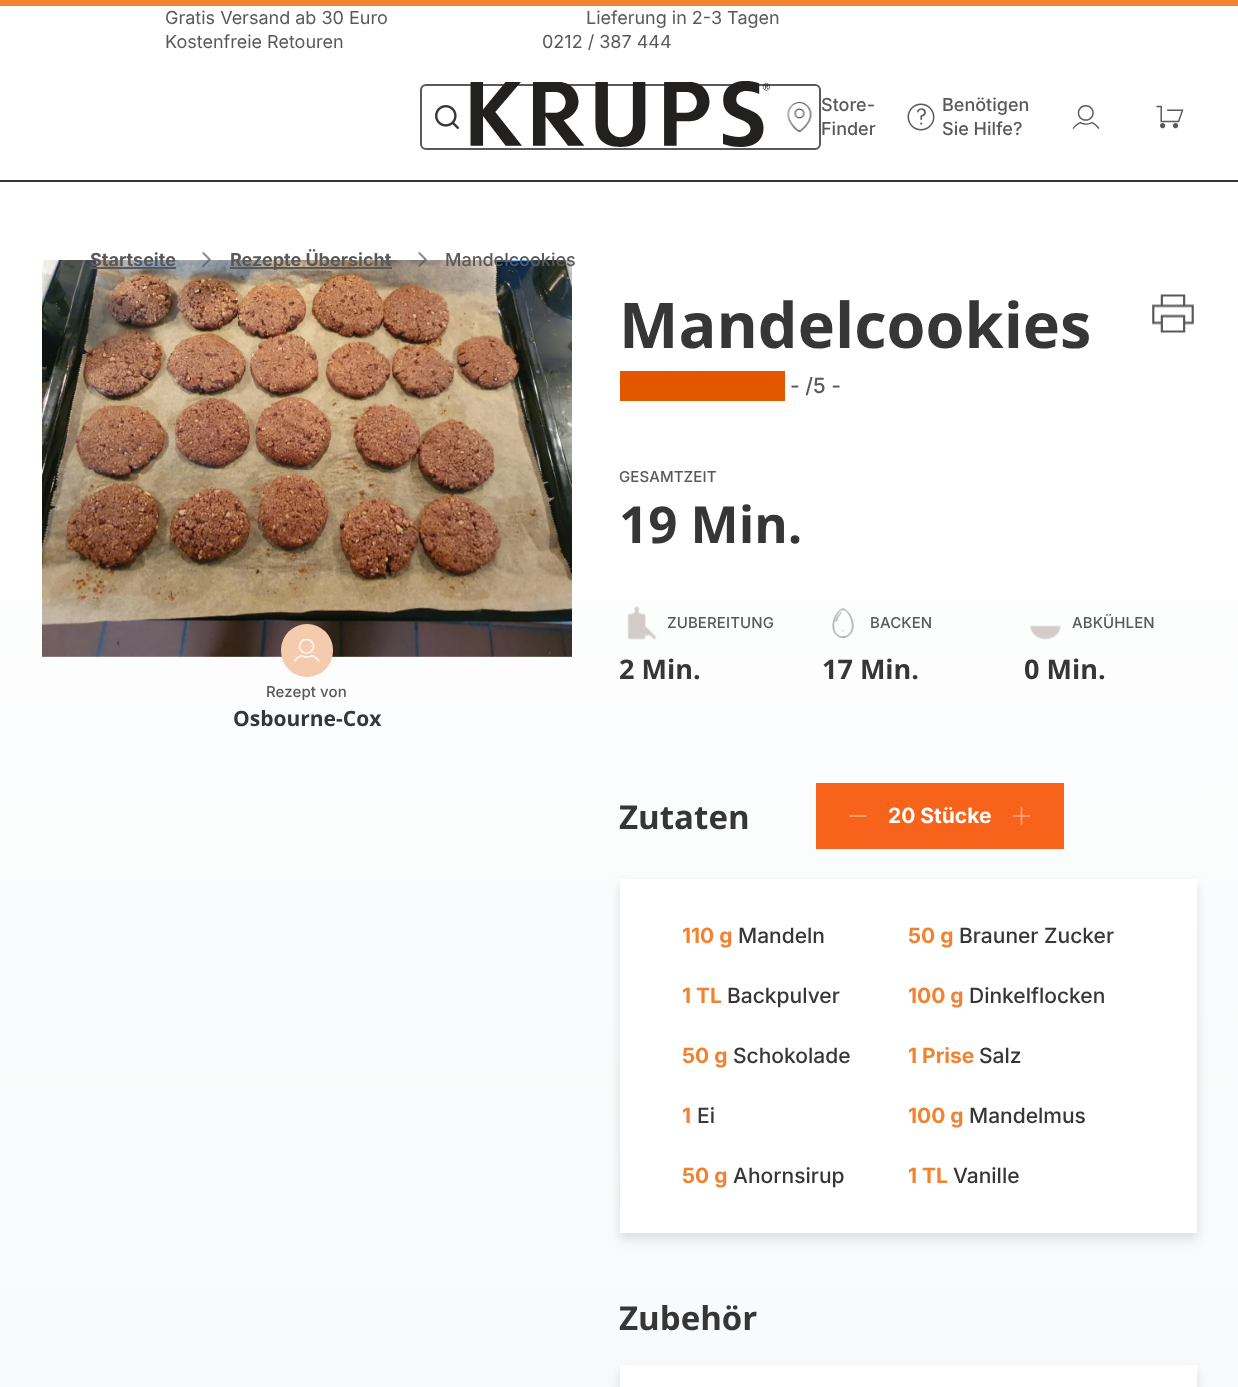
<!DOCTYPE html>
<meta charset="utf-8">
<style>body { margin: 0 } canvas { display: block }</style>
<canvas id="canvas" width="1238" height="1387"></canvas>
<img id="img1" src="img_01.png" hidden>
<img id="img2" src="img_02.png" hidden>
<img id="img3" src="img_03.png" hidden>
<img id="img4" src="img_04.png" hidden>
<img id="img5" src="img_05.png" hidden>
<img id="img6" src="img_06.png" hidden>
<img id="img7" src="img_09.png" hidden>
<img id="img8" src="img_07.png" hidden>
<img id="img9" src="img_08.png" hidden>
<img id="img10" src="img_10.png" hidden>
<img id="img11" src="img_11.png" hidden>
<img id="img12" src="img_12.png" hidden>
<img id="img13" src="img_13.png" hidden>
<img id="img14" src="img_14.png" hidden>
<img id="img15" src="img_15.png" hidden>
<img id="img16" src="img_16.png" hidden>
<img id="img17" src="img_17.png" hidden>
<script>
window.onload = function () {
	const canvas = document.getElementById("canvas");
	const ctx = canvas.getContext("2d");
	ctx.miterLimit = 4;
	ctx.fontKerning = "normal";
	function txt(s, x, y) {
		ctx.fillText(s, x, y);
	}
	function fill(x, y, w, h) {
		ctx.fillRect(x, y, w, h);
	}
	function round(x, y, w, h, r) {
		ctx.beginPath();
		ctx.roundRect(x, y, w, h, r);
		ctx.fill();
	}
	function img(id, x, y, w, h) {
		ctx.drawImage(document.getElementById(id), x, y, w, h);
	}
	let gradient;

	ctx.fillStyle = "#FFFFFF";
	fill(0, 0, 1238, 1387);
	ctx.fillStyle = "#F38230";
	fill(0, 0, 1238, 6);
	ctx.fillStyle = "#363636";
	fill(0, 180, 1238, 2);
	ctx.beginPath();
	ctx.roundRect(421, 85, 399, 64, 5);
	ctx.strokeStyle = "#595959";
	ctx.lineWidth = 2;
	ctx.stroke();
	img("img1", 470, 81, 300, 66);
	img("img2", 435, 105, 24, 24);
	img("img3", 787, 102, 25, 30);
	img("img4", 907, 103, 28, 28);
	img("img5", 1072, 105, 28, 24);
	img("img6", 1156, 105, 28, 24);
	gradient = ctx.createLinearGradient(619, 194, 620, 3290);
	gradient.addColorStop(0, "#FFFFFF");
	gradient.addColorStop(1, "#ECF1F4");
	ctx.fillStyle = gradient;
	fill(0, 601, 1238, 786);
	img("img7", 42, 260, 530, 397);
	ctx.fillStyle = "#595959";
	fill(90, 267, 86, 2);
	img("img8", 202, 251, 9, 17);
	fill(230, 267, 162, 2);
	img("img9", 418, 251, 9, 17);
	ctx.fillStyle = "#F5CBAD";
	round(281, 624, 52, 53, 26);
	img("img10", 293, 638, 27, 24);
	img("img11", 1152, 294, 42, 39);
	ctx.fillStyle = "#E35700";
	fill(620, 371, 165, 30);
	img("img12", 619, 370, 148, 14);
	img("img13", 627, 606, 30, 34);
	img("img14", 832, 608, 22, 30);
	img("img15", 1030, 625, 31, 15);
	ctx.fillStyle = "#F8631B";
	fill(816, 783, 248, 66);
	img("img16", 849, 815, 18, 2);
	img("img17", 1012, 807, 19, 18);
	ctx.fillStyle = "rgba(54, 54, 54, 0.15)";
	ctx.filter = "blur(6px)";
	ctx.beginPath();
	ctx.rect(620, 885, 577, 354);
	ctx.fill();
	ctx.filter = "none";
	ctx.fillStyle = "#FFFFFF";
	fill(620, 879, 577, 354);
	ctx.fillStyle = "rgba(54, 54, 54, 0.15)";
	ctx.filter = "blur(6px)";
	ctx.beginPath();
	ctx.rect(620, 1371, 577, 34);
	ctx.fill();
	ctx.filter = "none";
	ctx.fillStyle = "#FFFFFF";
	fill(620, 1365, 577, 22);
	ctx.font = "18px Inter";
	ctx.fillStyle = "#595959";
	txt("Gratis Versand ab 30 Euro", 165, 24);
	txt("Lieferung in 2-3 Tagen", 586, 24);
	txt("Kostenfreie Retouren", 165, 48);
	txt("0212 / 387 444", 542, 48);
	ctx.font = "500 18px Inter";
	txt("Store-", 821, 111);
	txt("Finder", 821, 135);
	txt("Benötigen", 942, 111);
	txt("Sie Hilfe?", 942, 135);
	ctx.font = "bold 18px Inter";
	txt("Startseite", 90, 266);
	txt("Rezepte Übersicht", 230, 266);
	ctx.font = "500 18px Inter";
	txt("Mandelcookies", 445, 266);
	ctx.letterSpacing = "0.1px";
	ctx.font = "500 15px Inter";
	txt("Rezept von", 266, 697);
	ctx.letterSpacing = "0px";
	ctx.font = "bold 21px Open Sans";
	ctx.fillStyle = "#363636";
	txt("Osbourne-Cox", 233, 726);
	ctx.font = "bold 63px Open Sans";
	txt("Mandelcookies", 619, 348);
	ctx.font = "500 21px Inter";
	ctx.fillStyle = "#595959";
	txt("- /5 -", 790, 393);
	ctx.letterSpacing = "0.1px";
	ctx.font = "500 15px Inter";
	txt("GESAMTZEIT", 619, 482);
	ctx.letterSpacing = "0px";
	ctx.font = "bold 51px Open Sans";
	ctx.fillStyle = "#363636";
	txt("19 Min.", 619, 543);
	ctx.letterSpacing = "0.1px";
	ctx.font = "500 15px Inter";
	ctx.fillStyle = "#595959";
	txt("ZUBEREITUNG", 667, 628);
	ctx.letterSpacing = "0px";
	ctx.font = "bold 27px Open Sans";
	ctx.fillStyle = "#363636";
	txt("2 Min.", 619, 679);
	ctx.letterSpacing = "0.1px";
	ctx.font = "500 15px Inter";
	ctx.fillStyle = "#595959";
	txt("BACKEN", 870, 628);
	ctx.letterSpacing = "0px";
	ctx.font = "bold 27px Open Sans";
	ctx.fillStyle = "#363636";
	txt("17 Min.", 822, 679);
	ctx.letterSpacing = "0.1px";
	ctx.font = "500 15px Inter";
	ctx.fillStyle = "#595959";
	txt("ABKÜHLEN", 1072, 628);
	ctx.letterSpacing = "0px";
	ctx.font = "bold 27px Open Sans";
	ctx.fillStyle = "#363636";
	txt("0 Min.", 1024, 679);
	ctx.font = "bold 33px Open Sans";
	txt("Zutaten", 619, 829);
	ctx.font = "bold 21px Inter";
	ctx.fillStyle = "#FFFFFF";
	txt("20 Stücke", 888, 823);
	ctx.fillStyle = "#F38230";
	txt("110 g", 682, 943);
	ctx.font = "500 21px Inter";
	ctx.fillStyle = "#363636";
	txt("Mandeln", 738, 943);
	ctx.font = "bold 21px Inter";
	ctx.fillStyle = "#F38230";
	txt("50 g", 908, 943);
	ctx.font = "500 21px Inter";
	ctx.fillStyle = "#363636";
	txt("Brauner Zucker", 959, 943);
	ctx.font = "bold 21px Inter";
	ctx.fillStyle = "#F38230";
	txt("1 TL", 682, 1003);
	ctx.font = "500 21px Inter";
	ctx.fillStyle = "#363636";
	txt("Backpulver", 727, 1003);
	ctx.font = "bold 21px Inter";
	ctx.fillStyle = "#F38230";
	txt("100 g", 908, 1003);
	ctx.font = "500 21px Inter";
	ctx.fillStyle = "#363636";
	txt("Dinkelflocken", 969, 1003);
	ctx.font = "bold 21px Inter";
	ctx.fillStyle = "#F38230";
	txt("50 g", 682, 1063);
	ctx.font = "500 21px Inter";
	ctx.fillStyle = "#363636";
	txt("Schokolade", 733, 1063);
	ctx.font = "bold 21px Inter";
	ctx.fillStyle = "#F38230";
	txt("1 Prise", 908, 1063);
	ctx.font = "500 21px Inter";
	ctx.fillStyle = "#363636";
	txt("Salz", 979, 1063);
	ctx.font = "bold 21px Inter";
	ctx.fillStyle = "#F38230";
	txt("1", 682, 1123);
	ctx.font = "500 21px Inter";
	ctx.fillStyle = "#363636";
	txt("Ei", 697, 1123);
	ctx.font = "bold 21px Inter";
	ctx.fillStyle = "#F38230";
	txt("100 g", 908, 1123);
	ctx.font = "500 21px Inter";
	ctx.fillStyle = "#363636";
	txt("Mandelmus", 969, 1123);
	ctx.font = "bold 21px Inter";
	ctx.fillStyle = "#F38230";
	txt("50 g", 682, 1183);
	ctx.font = "500 21px Inter";
	ctx.fillStyle = "#363636";
	txt("Ahornsirup", 733, 1183);
	ctx.font = "bold 21px Inter";
	ctx.fillStyle = "#F38230";
	txt("1 TL", 908, 1183);
	ctx.font = "500 21px Inter";
	ctx.fillStyle = "#363636";
	txt("Vanille", 953, 1183);
	ctx.font = "bold 33px Open Sans";
	txt("Zubehör", 619, 1330);
};
</script>
